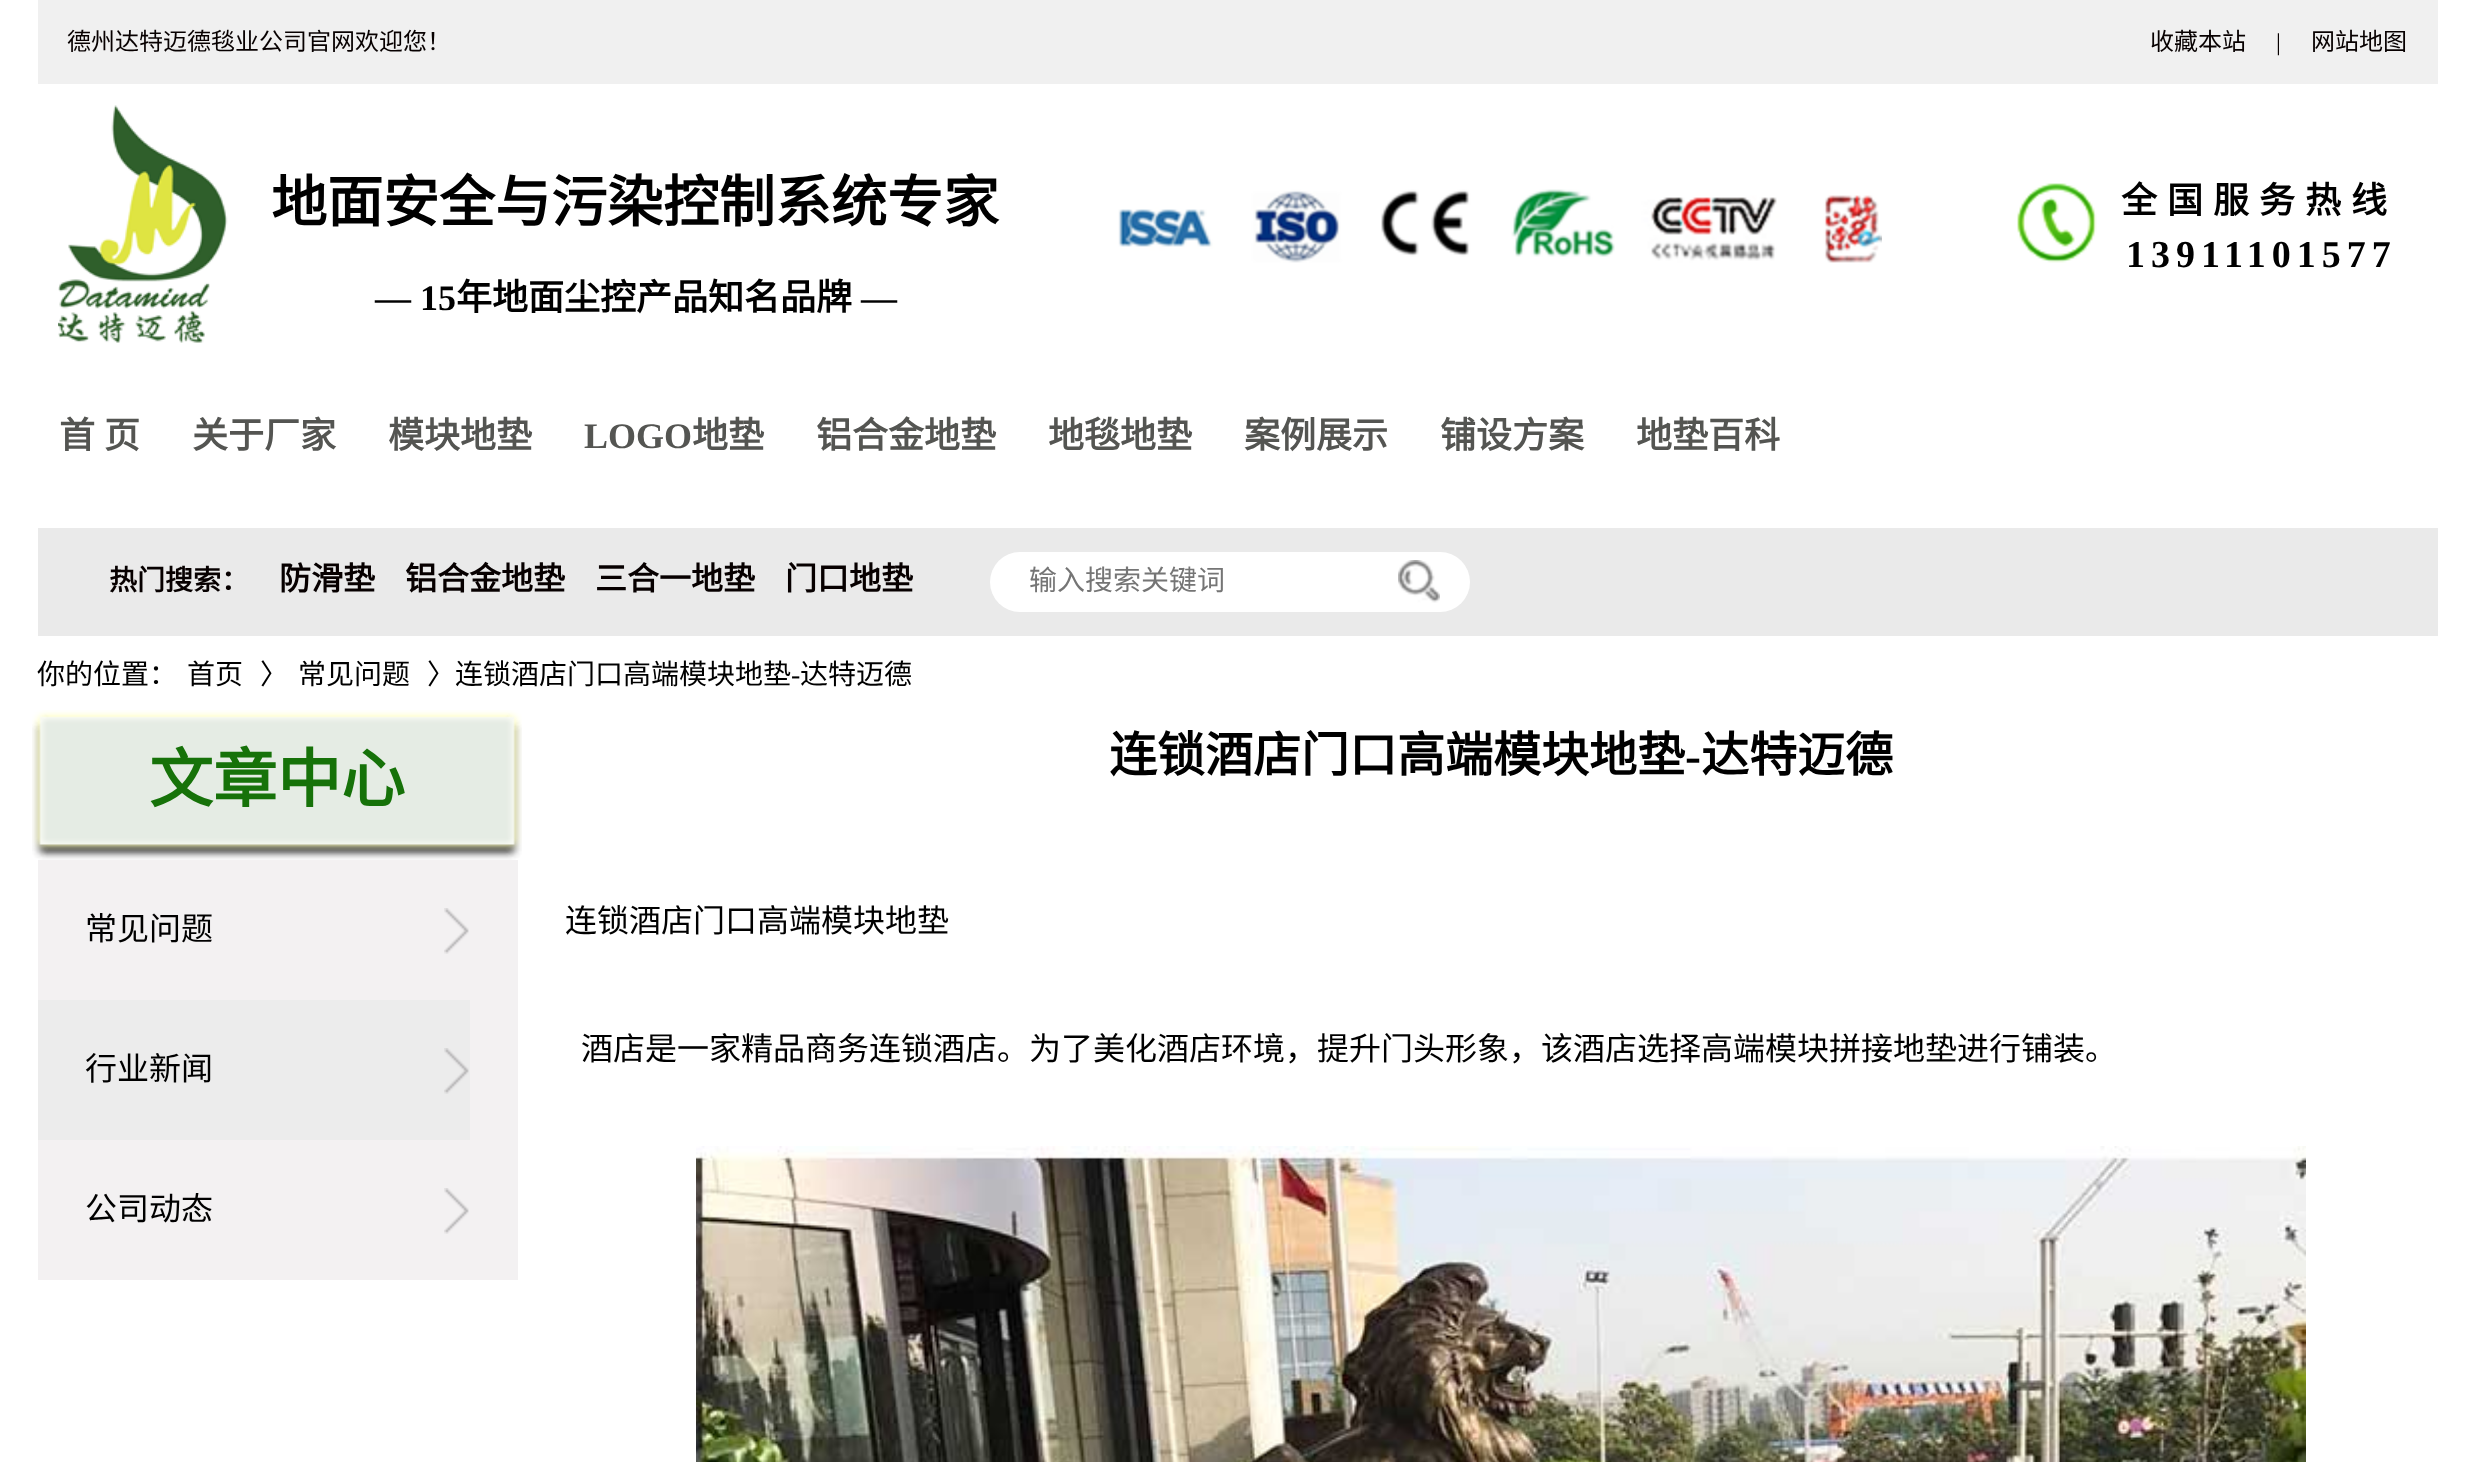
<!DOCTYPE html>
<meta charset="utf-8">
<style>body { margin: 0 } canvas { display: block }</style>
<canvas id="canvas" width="2474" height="1462"></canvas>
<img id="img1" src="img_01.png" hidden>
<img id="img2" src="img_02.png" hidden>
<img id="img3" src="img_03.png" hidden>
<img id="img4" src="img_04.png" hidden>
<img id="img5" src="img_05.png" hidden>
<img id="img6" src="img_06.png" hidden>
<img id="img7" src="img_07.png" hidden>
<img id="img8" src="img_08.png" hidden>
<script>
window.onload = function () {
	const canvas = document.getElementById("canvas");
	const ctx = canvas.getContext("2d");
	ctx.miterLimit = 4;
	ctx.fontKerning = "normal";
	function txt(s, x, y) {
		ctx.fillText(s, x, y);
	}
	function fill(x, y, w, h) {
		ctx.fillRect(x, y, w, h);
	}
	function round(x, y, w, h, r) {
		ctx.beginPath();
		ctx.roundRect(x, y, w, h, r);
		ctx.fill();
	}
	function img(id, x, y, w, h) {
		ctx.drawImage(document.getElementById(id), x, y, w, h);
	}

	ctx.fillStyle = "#FFFFFF";
	fill(0, 0, 2474, 1462);
	ctx.fillStyle = "#F0F0F0";
	fill(38, 0, 2400, 84);
	img("img1", 58, 105, 170, 238);
	img("img2", 1118, 189, 764, 74);
	img("img3", 2017, 183, 80, 80);
	ctx.fillStyle = "#EAEAEA";
	fill(38, 528, 2400, 108);
	ctx.fillStyle = "#FFFFFF";
	round(990, 552, 480, 60, 30);
	img("img4", 1398, 560, 42, 43);
	img("img5", 32, 710, 490, 150);
	ctx.fillStyle = "#F3F1F2";
	fill(38, 860, 480, 420);
	img("img6", 444, 908, 25, 46);
	ctx.fillStyle = "#ECECEC";
	fill(38, 1000, 432, 140);
	img("img7", 444, 1048, 25, 46);
	img("img6", 444, 1188, 25, 46);
	img("img8", 696, 1146, 1610, 316);
	ctx.font = "24px Noto Sans CJK SC";
	ctx.fillStyle = "#070000";
	txt("德州达特迈德毯业公司官网欢迎您！", 67, 50);
	txt("收藏本站", 2150, 50);
	ctx.font = "24px Liberation Serif";
	txt("|", 2276, 50);
	ctx.font = "24px Noto Sans CJK SC";
	txt("网站地图", 2311, 50);
	ctx.font = "bold 56px Noto Sans CJK SC";
	ctx.fillStyle = "#000000";
	txt("地面安全与污染控制系统专家", 271, 222);
	ctx.font = "bold 36px Liberation Serif";
	txt("— 15", 375, 310);
	ctx.font = "bold 36px Noto Sans CJK SC";
	txt("年地面尘控产品知名品牌", 456, 310);
	ctx.font = "bold 36px Liberation Serif";
	txt("—", 861, 310);
	ctx.letterSpacing = "10px";
	ctx.font = "bold 36px Noto Sans CJK SC";
	txt("全国服务热线", 2121, 213);
	ctx.letterSpacing = "6px";
	ctx.font = "bold 38px Liberation Serif";
	txt("13911101577", 2126, 267);
	ctx.letterSpacing = "0px";
	ctx.wordSpacing = "1px";
	ctx.font = "bold 36px Noto Sans CJK SC";
	ctx.fillStyle = "#545552";
	txt("首 页", 59, 448);
	ctx.wordSpacing = "0px";
	txt("关于厂家", 192, 448);
	txt("模块地垫", 388, 448);
	ctx.font = "bold 36px Liberation Serif";
	txt("LOGO", 584, 448);
	ctx.font = "bold 36px Noto Sans CJK SC";
	txt("地垫", 692, 448);
	txt("铝合金地垫", 816, 448);
	txt("地毯地垫", 1048, 448);
	txt("案例展示", 1244, 448);
	txt("铺设方案", 1440, 448);
	txt("地垫百科", 1636, 448);
	ctx.font = "bold 28px Noto Sans CJK SC";
	ctx.fillStyle = "#070000";
	txt("热门搜索：", 109, 590);
	ctx.font = "bold 32px Noto Sans CJK SC";
	txt("防滑垫", 279, 590);
	txt("铝合金地垫", 405, 590);
	txt("三合一地垫", 595, 590);
	txt("门口地垫", 785, 590);
	ctx.font = "28px Noto Sans CJK SC";
	ctx.fillStyle = "#757575";
	txt("输入搜索关键词", 1029, 590);
	ctx.fillStyle = "#000000";
	txt("你的位置：", 37, 684);
	txt("首页", 187, 684);
	txt("〉", 260, 684);
	txt("常见问题", 298, 684);
	txt("〉连锁酒店门口高端模块地垫", 427, 684);
	ctx.font = "28px Liberation Serif";
	txt("-", 791, 684);
	ctx.font = "28px Noto Sans CJK SC";
	txt("达特迈德", 800, 684);
	ctx.font = "bold 64px Noto Sans CJK SC";
	ctx.fillStyle = "#167209";
	txt("文章中心", 149, 802);
	ctx.font = "32px Noto Sans CJK SC";
	ctx.fillStyle = "#000000";
	txt("常见问题", 85, 940);
	txt("行业新闻", 85, 1080);
	txt("公司动态", 85, 1220);
	ctx.font = "bold 48px Noto Sans CJK SC";
	txt("连锁酒店门口高端模块地垫", 1109, 772);
	ctx.font = "bold 48px Liberation Serif";
	txt("-", 1685, 772);
	ctx.font = "bold 48px Noto Sans CJK SC";
	txt("达特迈德", 1701, 772);
	ctx.font = "32px Noto Sans CJK SC";
	txt("连锁酒店门口高端模块地垫", 565, 932);
	txt("酒店是一家精品商务连锁酒店。为了美化酒店环境，提升门头形象，该酒店选择高端模块拼接地垫进行铺装。", 581, 1060);
};
</script>
